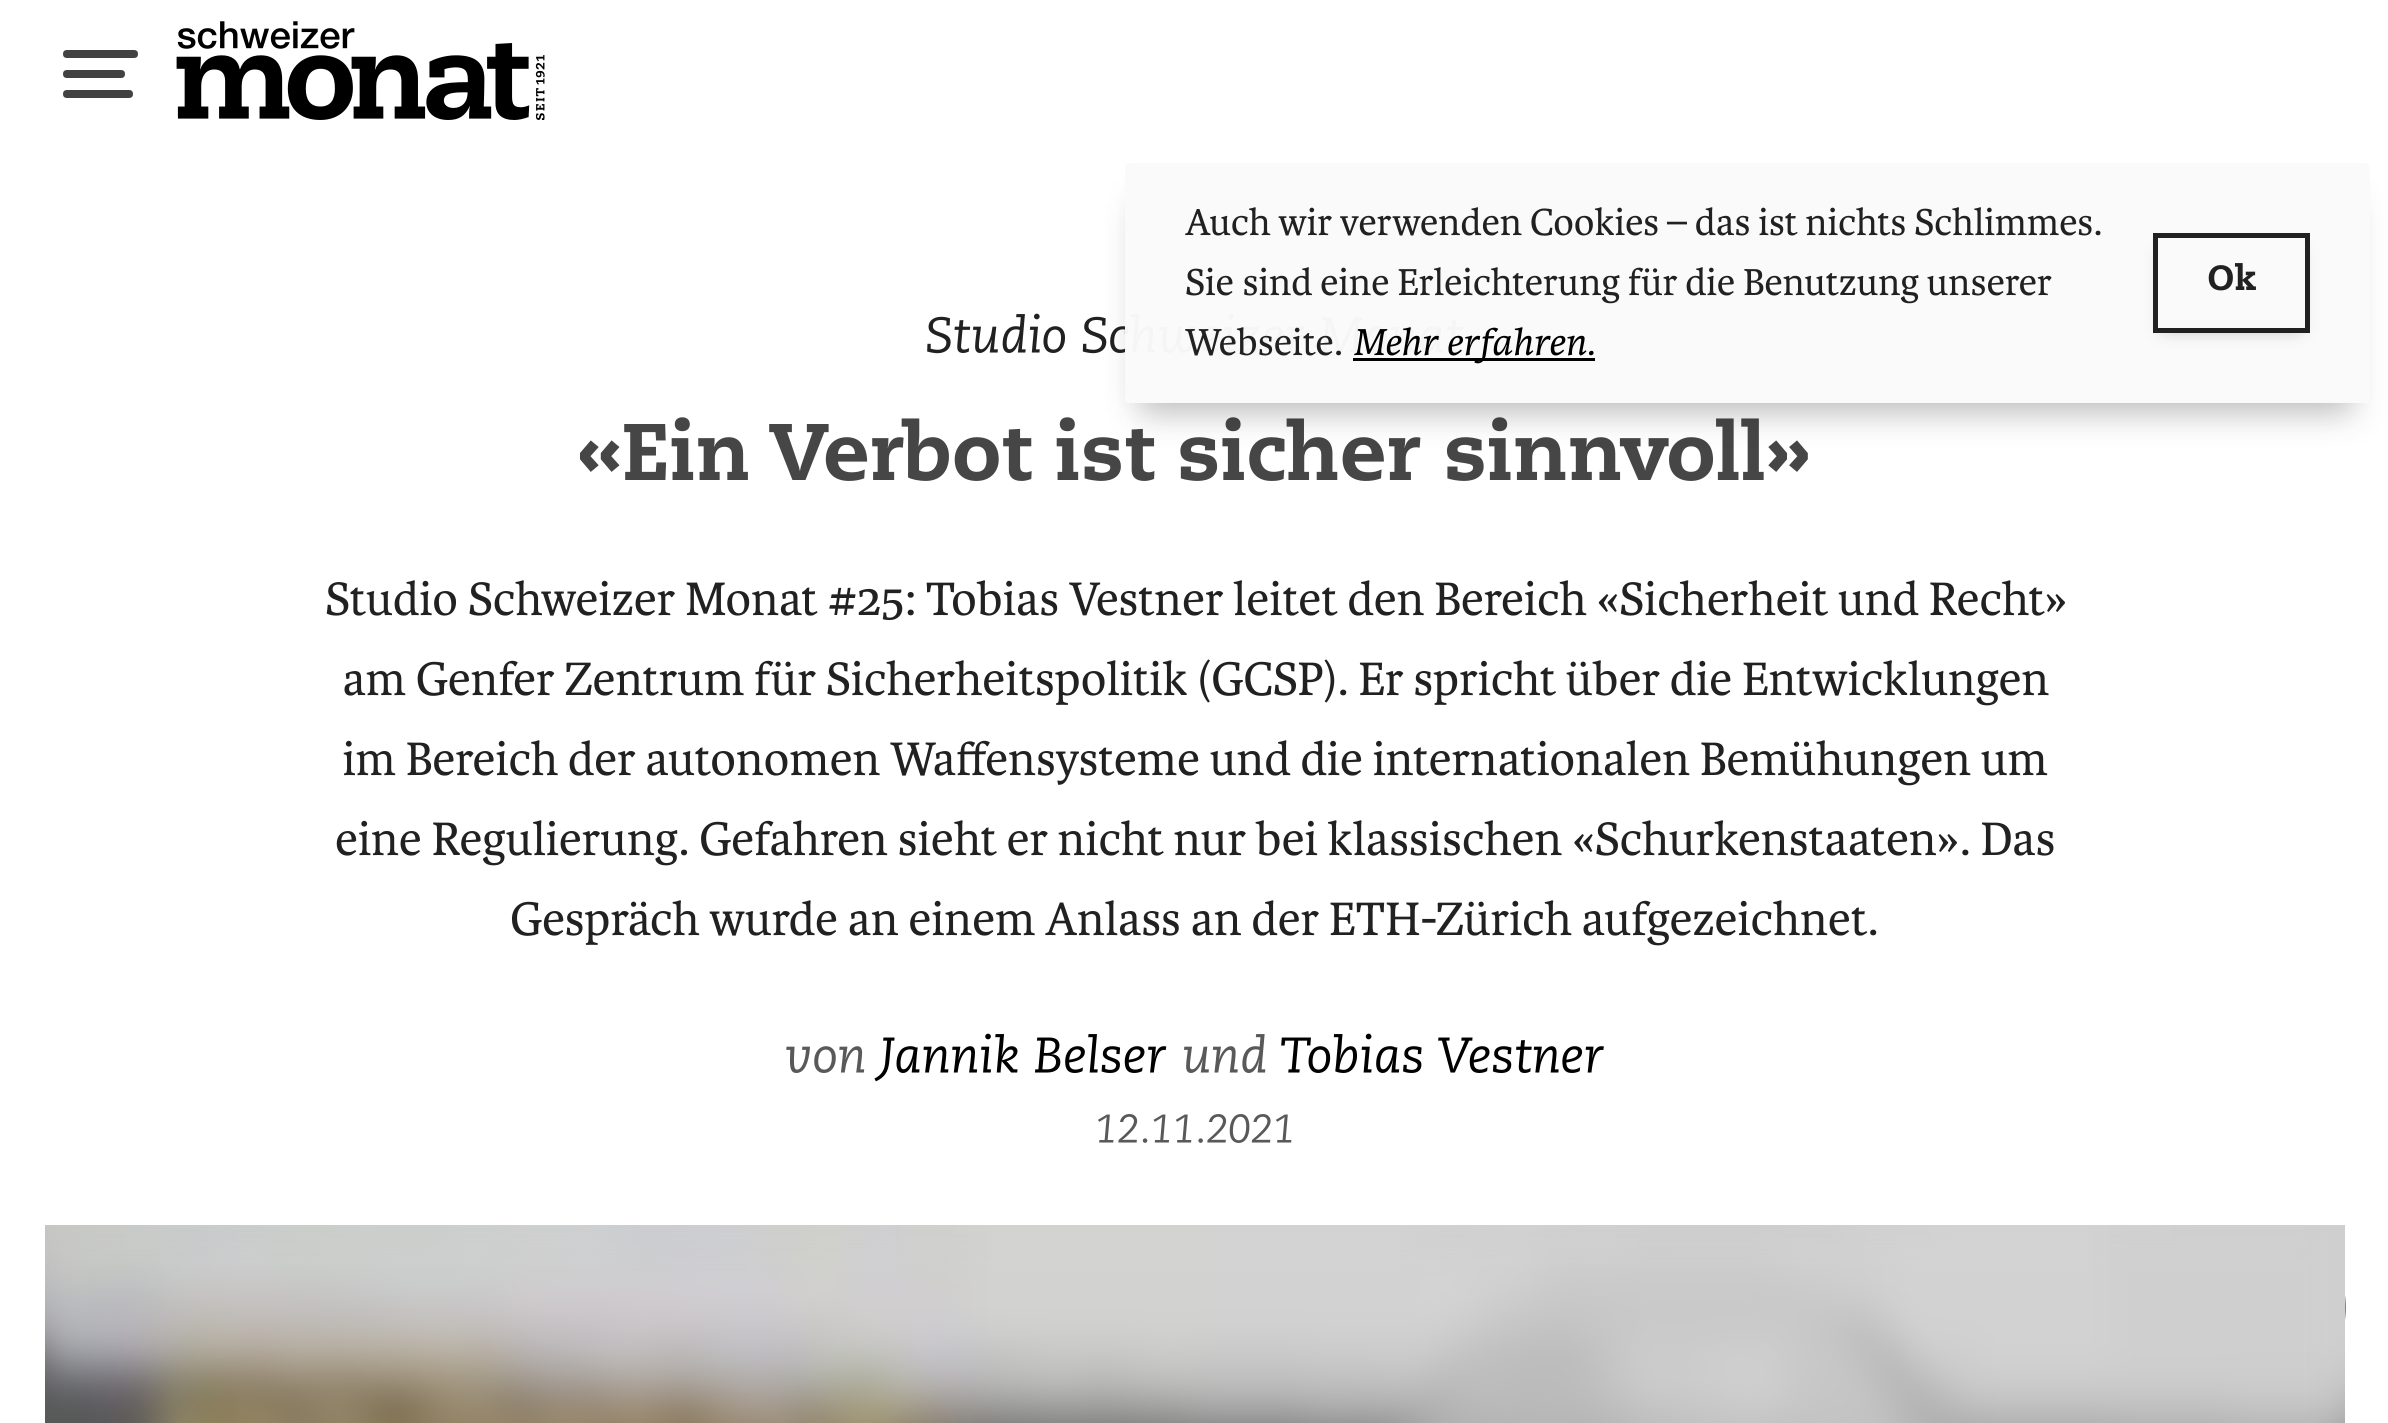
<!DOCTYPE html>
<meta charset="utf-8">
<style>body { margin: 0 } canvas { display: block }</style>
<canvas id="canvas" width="2388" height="1423"></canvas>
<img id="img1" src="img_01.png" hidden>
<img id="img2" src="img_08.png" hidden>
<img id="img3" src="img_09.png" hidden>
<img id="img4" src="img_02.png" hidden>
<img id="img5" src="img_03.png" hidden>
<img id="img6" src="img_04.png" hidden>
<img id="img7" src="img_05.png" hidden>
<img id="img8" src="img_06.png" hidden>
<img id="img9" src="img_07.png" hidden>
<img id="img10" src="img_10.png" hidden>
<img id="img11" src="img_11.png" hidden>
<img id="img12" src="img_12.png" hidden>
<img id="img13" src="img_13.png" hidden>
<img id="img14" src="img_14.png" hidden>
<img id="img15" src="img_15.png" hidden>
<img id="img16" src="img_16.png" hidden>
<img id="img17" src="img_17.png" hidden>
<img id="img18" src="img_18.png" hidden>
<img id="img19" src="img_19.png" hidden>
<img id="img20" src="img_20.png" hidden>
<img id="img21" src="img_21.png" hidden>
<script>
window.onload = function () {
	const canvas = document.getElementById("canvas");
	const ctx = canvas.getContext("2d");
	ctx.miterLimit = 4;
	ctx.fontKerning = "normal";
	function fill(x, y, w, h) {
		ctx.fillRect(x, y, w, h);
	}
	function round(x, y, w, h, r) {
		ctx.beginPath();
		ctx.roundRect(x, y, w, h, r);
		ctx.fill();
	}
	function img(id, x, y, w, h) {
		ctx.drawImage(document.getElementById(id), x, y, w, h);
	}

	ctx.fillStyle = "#FFFFFF";
	fill(0, 0, 2388, 1423);
	ctx.fillStyle = "#424242";
	round(63, 50, 75, 8, 4);
	round(63, 70, 62, 8, 4);
	round(63, 90, 70, 8, 4);
	img("img1", 176, 21, 369, 99);
	img("img2", 927, 313, 536, 41);
	img("img3", 580, 417, 1228, 64);
	ctx.save();
	ctx.beginPath();
	ctx.moveTo(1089, 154);
	ctx.lineTo(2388, 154);
	ctx.lineTo(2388, 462);
	ctx.lineTo(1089, 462);
	ctx.closePath();
	ctx.moveTo(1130, 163);
	ctx.lineTo(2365, 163);
	ctx.bezierCurveTo(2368, 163, 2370, 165, 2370, 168);
	ctx.lineTo(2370, 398);
	ctx.bezierCurveTo(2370, 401, 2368, 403, 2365, 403);
	ctx.lineTo(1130, 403);
	ctx.bezierCurveTo(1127, 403, 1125, 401, 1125, 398);
	ctx.lineTo(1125, 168);
	ctx.bezierCurveTo(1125, 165, 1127, 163, 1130, 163);
	ctx.closePath();
	ctx.clip("evenodd");
	ctx.fillStyle = "rgba(33, 33, 33, 0.3)";
	ctx.filter = "blur(16px)";
	ctx.beginPath();
	ctx.rect(1138, 203, 1215, 210);
	ctx.fill();
	ctx.filter = "none";
	ctx.restore();
	ctx.fillStyle = "rgba(250, 250, 250, 0.98)";
	round(1125, 163, 1245, 240, 5);
	img("img4", 1185, 207, 916, 29);
	img("img5", 1186, 267, 47, 29);
	img("img6", 1244, 267, 808, 37);
	img("img7", 1185, 327, 156, 29);
	ctx.fillStyle = "#000000";
	fill(1353, 358, 242, 3);
	img("img8", 1354, 327, 240, 37);
	ctx.save();
	ctx.beginPath();
	ctx.moveTo(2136, 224);
	ctx.lineTo(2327, 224);
	ctx.lineTo(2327, 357);
	ctx.lineTo(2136, 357);
	ctx.closePath();
	ctx.moveTo(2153, 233);
	ctx.lineTo(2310, 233);
	ctx.lineTo(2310, 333);
	ctx.lineTo(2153, 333);
	ctx.closePath();
	ctx.clip("evenodd");
	ctx.fillStyle = "rgba(33, 33, 33, 0.2)";
	ctx.filter = "blur(7.5px)";
	ctx.beginPath();
	ctx.rect(2160, 248, 143, 85);
	ctx.fill();
	ctx.filter = "none";
	ctx.restore();
	ctx.strokeStyle = "#212121";
	ctx.lineWidth = 5;
	ctx.strokeRect(2155.5, 235.5, 152, 95);
	img("img9", 2208, 263, 48, 28);
	img("img10", 326, 580, 1739, 41);
	img("img11", 344, 659, 1705, 47);
	img("img12", 343, 740, 1705, 46);
	img("img13", 336, 820, 1718, 46);
	img("img14", 511, 900, 1366, 46);
	img("img15", 786, 1046, 79, 27);
	img("img16", 874, 1033, 293, 49);
	img("img17", 1184, 1034, 82, 39);
	img("img18", 1281, 1033, 323, 40);
	img("img19", 1098, 1114, 194, 29);
	img("img20", 45, 1225, 2300, 198);
	img("img21", 2345, 1295, 1, 25);
};
</script>
